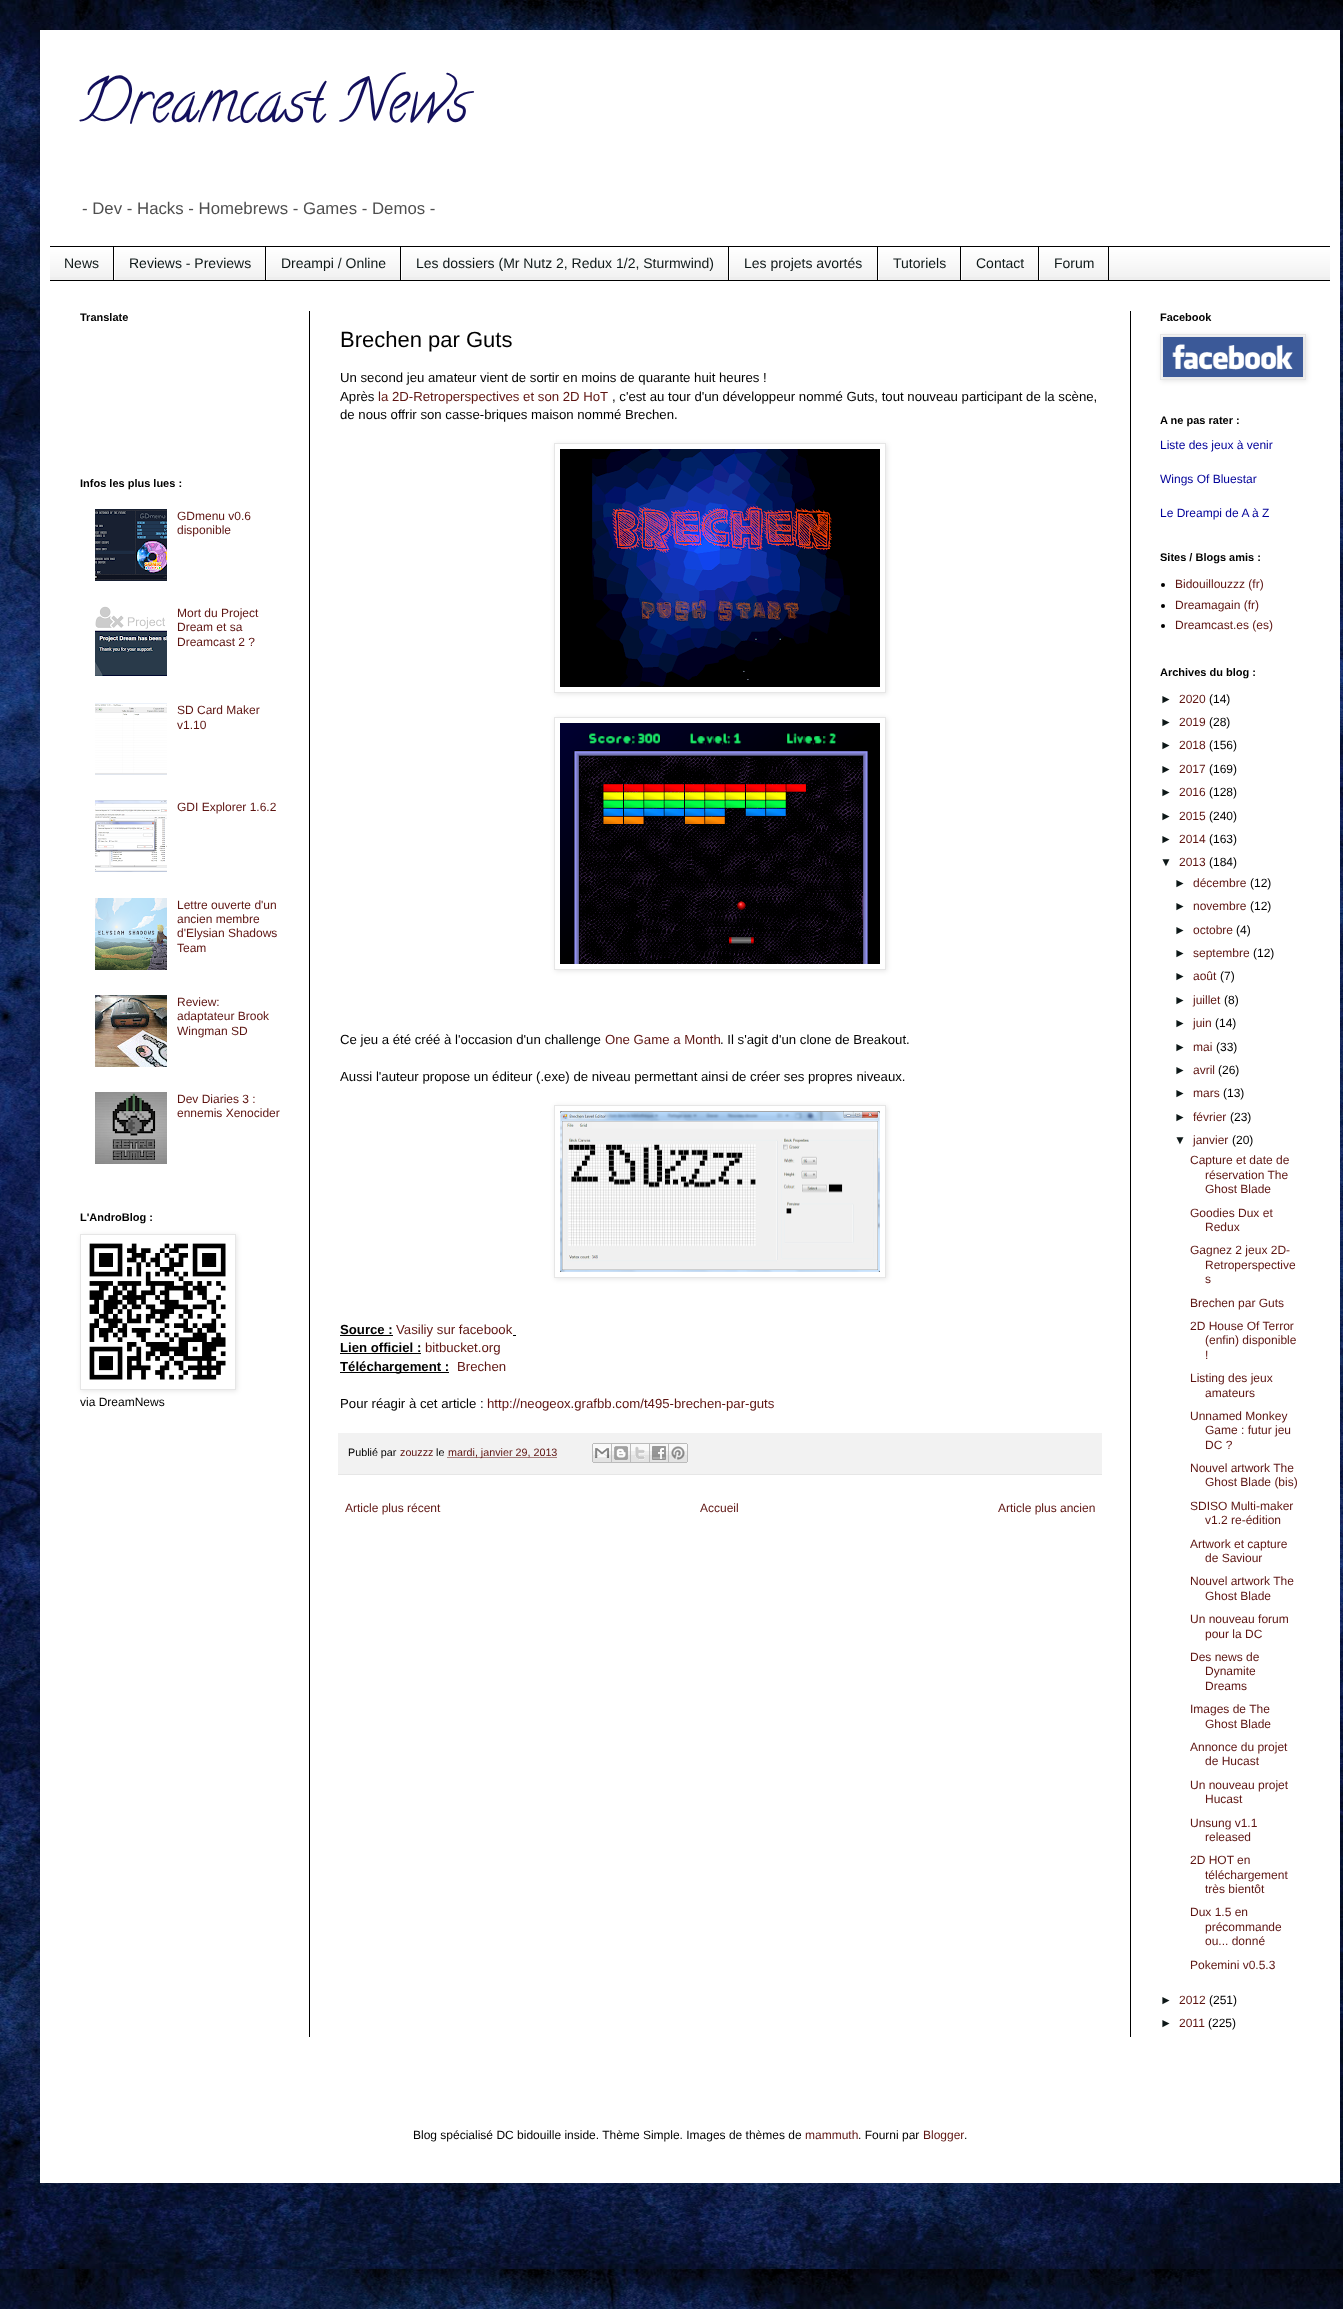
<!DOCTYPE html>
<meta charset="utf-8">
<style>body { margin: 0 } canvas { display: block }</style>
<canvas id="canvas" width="1343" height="2309"></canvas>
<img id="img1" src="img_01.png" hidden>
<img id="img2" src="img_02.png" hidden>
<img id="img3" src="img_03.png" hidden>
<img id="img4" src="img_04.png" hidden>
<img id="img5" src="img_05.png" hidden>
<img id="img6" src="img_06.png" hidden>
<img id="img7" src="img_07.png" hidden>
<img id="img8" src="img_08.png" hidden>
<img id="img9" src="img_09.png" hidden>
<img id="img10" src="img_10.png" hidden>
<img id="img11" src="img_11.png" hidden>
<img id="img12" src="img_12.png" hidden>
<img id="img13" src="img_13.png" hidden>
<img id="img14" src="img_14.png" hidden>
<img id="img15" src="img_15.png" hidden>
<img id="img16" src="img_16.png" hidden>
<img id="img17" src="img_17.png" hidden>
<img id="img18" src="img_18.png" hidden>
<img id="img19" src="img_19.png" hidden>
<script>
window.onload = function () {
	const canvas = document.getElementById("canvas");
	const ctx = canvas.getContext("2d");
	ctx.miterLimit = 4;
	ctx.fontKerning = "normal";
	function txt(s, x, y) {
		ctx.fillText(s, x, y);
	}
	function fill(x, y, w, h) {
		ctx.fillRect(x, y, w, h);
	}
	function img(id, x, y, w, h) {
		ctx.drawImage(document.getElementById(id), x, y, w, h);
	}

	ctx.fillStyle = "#FFFFFF";
	fill(0, 0, 1343, 2309);
	img("img1", 0, 0, 1343, 2309);
	ctx.fillStyle = "rgba(0, 0, 0, 0.15)";
	ctx.filter = "blur(20px)";
	ctx.beginPath();
	ctx.rect(40, 30, 1300, 2153);
	ctx.fill();
	ctx.filter = "none";
	ctx.fillStyle = "#FFFFFF";
	fill(40, 30, 1300, 2153);
	ctx.fillStyle = "#EEEEEE";
	fill(50, 248, 1280, 32);
	img("img2", 50, 247, 1280, 30);
	ctx.fillStyle = "#000000";
	fill(50, 246, 1280, 1);
	fill(50, 280, 1280, 1);
	fill(113, 247, 1, 33);
	fill(265, 247, 1, 33);
	ctx.fillStyle = "#FFFFFF";
	fill(114, 247, 1, 33);
	ctx.fillStyle = "#000000";
	fill(400, 247, 1, 33);
	ctx.fillStyle = "#FFFFFF";
	fill(266, 247, 1, 33);
	ctx.fillStyle = "#000000";
	fill(728, 247, 1, 33);
	ctx.fillStyle = "#FFFFFF";
	fill(401, 247, 1, 33);
	ctx.fillStyle = "#000000";
	fill(877, 247, 1, 33);
	ctx.fillStyle = "#FFFFFF";
	fill(729, 247, 1, 33);
	ctx.fillStyle = "#000000";
	fill(960, 247, 1, 33);
	ctx.fillStyle = "#FFFFFF";
	fill(878, 247, 1, 33);
	ctx.fillStyle = "#000000";
	fill(1038, 247, 1, 33);
	ctx.fillStyle = "#FFFFFF";
	fill(961, 247, 1, 33);
	ctx.fillStyle = "#000000";
	fill(1108, 247, 1, 33);
	ctx.fillStyle = "#FFFFFF";
	fill(1039, 247, 1, 33);
	ctx.fillStyle = "#000000";
	fill(309, 311, 1, 1726);
	fill(1130, 311, 1, 1726);
	img("img3", 95, 509, 72, 72);
	img("img4", 95, 606, 72, 70);
	img("img5", 95, 703, 72, 72);
	img("img6", 95, 800, 72, 72);
	img("img7", 95, 898, 72, 72);
	img("img8", 95, 995, 72, 72);
	img("img9", 95, 1092, 72, 72);
	ctx.save();
	ctx.beginPath();
	ctx.moveTo(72, 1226);
	ctx.lineTo(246, 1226);
	ctx.lineTo(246, 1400);
	ctx.lineTo(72, 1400);
	ctx.closePath();
	ctx.moveTo(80, 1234);
	ctx.lineTo(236, 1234);
	ctx.lineTo(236, 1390);
	ctx.lineTo(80, 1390);
	ctx.closePath();
	ctx.clip("evenodd");
	ctx.fillStyle = "rgba(0, 0, 0, 0.1)";
	ctx.filter = "blur(2.5px)";
	ctx.beginPath();
	ctx.rect(81, 1235, 156, 156);
	ctx.fill();
	ctx.filter = "none";
	ctx.restore();
	ctx.strokeStyle = "#E6E6E6";
	ctx.strokeRect(80.5, 1234.5, 155, 155);
	img("img10", 89, 1243, 137, 137);
	ctx.save();
	ctx.beginPath();
	ctx.moveTo(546, 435);
	ctx.lineTo(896, 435);
	ctx.lineTo(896, 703);
	ctx.lineTo(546, 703);
	ctx.closePath();
	ctx.moveTo(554, 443);
	ctx.lineTo(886, 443);
	ctx.lineTo(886, 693);
	ctx.lineTo(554, 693);
	ctx.closePath();
	ctx.clip("evenodd");
	ctx.fillStyle = "rgba(0, 0, 0, 0.1)";
	ctx.filter = "blur(2.5px)";
	ctx.beginPath();
	ctx.rect(555, 444, 332, 250);
	ctx.fill();
	ctx.filter = "none";
	ctx.restore();
	ctx.strokeRect(554.5, 443.5, 331, 249);
	img("img11", 560, 449, 320, 238);
	ctx.save();
	ctx.beginPath();
	ctx.moveTo(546, 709);
	ctx.lineTo(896, 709);
	ctx.lineTo(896, 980);
	ctx.lineTo(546, 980);
	ctx.closePath();
	ctx.moveTo(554, 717);
	ctx.lineTo(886, 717);
	ctx.lineTo(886, 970);
	ctx.lineTo(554, 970);
	ctx.closePath();
	ctx.clip("evenodd");
	ctx.fillStyle = "rgba(0, 0, 0, 0.1)";
	ctx.filter = "blur(2.5px)";
	ctx.beginPath();
	ctx.rect(555, 718, 332, 253);
	ctx.fill();
	ctx.filter = "none";
	ctx.restore();
	ctx.strokeRect(554.5, 717.5, 331, 252);
	img("img12", 560, 723, 320, 241);
	ctx.save();
	ctx.beginPath();
	ctx.moveTo(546, 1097);
	ctx.lineTo(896, 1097);
	ctx.lineTo(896, 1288);
	ctx.lineTo(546, 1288);
	ctx.closePath();
	ctx.moveTo(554, 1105);
	ctx.lineTo(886, 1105);
	ctx.lineTo(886, 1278);
	ctx.lineTo(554, 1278);
	ctx.closePath();
	ctx.clip("evenodd");
	ctx.fillStyle = "rgba(0, 0, 0, 0.1)";
	ctx.filter = "blur(2.5px)";
	ctx.beginPath();
	ctx.rect(555, 1106, 332, 173);
	ctx.fill();
	ctx.filter = "none";
	ctx.restore();
	ctx.strokeRect(554.5, 1105.5, 331, 172);
	img("img13", 560, 1111, 320, 161);
	fill(340, 1335, 53, 1);
	fill(513, 1335, 3, 1);
	fill(340, 1353, 81, 1);
	fill(340, 1372, 109, 1);
	ctx.fillStyle = "#F2F2F2";
	fill(338, 1433, 764, 41);
	ctx.fillStyle = "#E6E6E6";
	fill(338, 1474, 764, 1);
	ctx.beginPath();
	ctx.moveTo(447.5, 1457.5);
	ctx.lineTo(557.5, 1457.5);
	ctx.strokeStyle = "#5D1411";
	ctx.setLineDash([1, 1]);
	ctx.stroke();
	img("img14", 592, 1443, 20, 20);
	img("img15", 612, 1443, 19, 20);
	img("img16", 631, 1443, 19, 20);
	img("img17", 650, 1443, 19, 20);
	img("img18", 669, 1443, 19, 20);
	ctx.fillStyle = "rgba(0, 0, 0, 0.1)";
	ctx.filter = "blur(2.5px)";
	ctx.beginPath();
	ctx.rect(1161, 335, 146, 46);
	ctx.fill();
	ctx.filter = "none";
	ctx.strokeStyle = "#E6E6E6";
	ctx.setLineDash([]);
	ctx.strokeRect(1160.5, 334.5, 145, 45);
	img("img19", 1163, 337, 140, 40);
	ctx.fillStyle = "#000000";
	ctx.beginPath();
	ctx.arc(1163, 585, 2, 0, Math.PI * 2);
	ctx.fill();
	ctx.beginPath();
	ctx.arc(1163, 606, 2, 0, Math.PI * 2);
	ctx.fill();
	ctx.beginPath();
	ctx.arc(1163, 626, 2, 0, Math.PI * 2);
	ctx.fill();
	ctx.font = "60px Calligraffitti";
	ctx.fillStyle = "#13105D";
	txt("Dreamcast News", 80, 120);
	ctx.font = "16.8px Liberation Sans";
	ctx.fillStyle = "#4F4F4F";
	txt("- Dev - Hacks - Homebrews - Games - Demos -", 82, 214);
	ctx.font = "14px Liberation Sans";
	ctx.fillStyle = "#0D1717";
	txt("News", 64, 268);
	txt("Reviews - Previews", 129, 268);
	txt("Dreampi / Online", 281, 268);
	txt("Les dossiers (Mr Nutz 2, Redux 1/2, Sturmwind)", 416, 268);
	txt("Les projets avortés", 744, 268);
	txt("Tutoriels", 893, 268);
	txt("Contact", 976, 268);
	txt("Forum", 1054, 268);
	ctx.font = "bold 11px Liberation Sans";
	ctx.fillStyle = "#000000";
	txt("Translate", 80, 321);
	txt("Infos les plus lues :", 80, 487);
	ctx.font = "12px Liberation Sans";
	ctx.fillStyle = "#5D1411";
	txt("GDmenu v0.6", 177, 520);
	txt("disponible", 177, 534);
	txt("Mort du Project", 177, 617);
	txt("Dream et sa", 177, 631);
	txt("Dreamcast 2 ?", 177, 646);
	txt("SD Card Maker", 177, 714);
	txt("v1.10", 177, 729);
	txt("GDI Explorer 1.6.2", 177, 811);
	txt("Lettre ouverte d'un", 177, 909);
	txt("ancien membre", 177, 923);
	txt("d'Elysian Shadows", 177, 937);
	txt("Team", 177, 952);
	txt("Review:", 177, 1006);
	txt("adaptateur Brook", 177, 1020);
	txt("Wingman SD", 177, 1035);
	txt("Dev Diaries 3 :", 177, 1103);
	txt("ennemis Xenocider", 177, 1117);
	ctx.font = "bold 11px Liberation Sans";
	ctx.fillStyle = "#000000";
	txt("L'AndroBlog :", 80, 1221);
	ctx.font = "12px Liberation Sans";
	txt("via DreamNews", 80, 1406);
	ctx.font = "22px Liberation Sans";
	txt("Brechen par Guts", 340, 347);
	ctx.font = "13.2px Liberation Sans";
	txt("Un second jeu amateur vient de sortir en moins de quarante huit heures !", 340, 382);
	txt("Après", 340, 401);
	ctx.fillStyle = "#5D1411";
	txt("la 2D-Retroperspectives et son 2D HoT", 378, 401);
	ctx.fillStyle = "#000000";
	txt(", c'est au tour d'un développeur nommé Guts, tout nouveau participant de la scène,", 612, 401);
	txt("de nous offrir son casse-briques maison nommé Brechen.", 340, 419);
	txt("Ce jeu a été créé à l'occasion d'un challenge", 340, 1044);
	ctx.fillStyle = "#5D1411";
	txt("One Game a Month", 605, 1044);
	ctx.fillStyle = "#000000";
	txt(". Il s'agit d'un clone de Breakout.", 720, 1044);
	txt("Aussi l'auteur propose un éditeur (.exe) de niveau permettant ainsi de créer ses propres niveaux.", 340, 1081);
	ctx.font = "bold 13.2px Liberation Sans";
	txt("Source :", 340, 1334);
	ctx.font = "13.2px Liberation Sans";
	ctx.fillStyle = "#5D1411";
	txt("Vasiliy sur facebook", 396, 1334);
	ctx.font = "bold 13.2px Liberation Sans";
	ctx.fillStyle = "#000000";
	txt("Lien officiel :", 340, 1352);
	ctx.font = "13.2px Liberation Sans";
	ctx.fillStyle = "#5D1411";
	txt("bitbucket.org", 425, 1352);
	ctx.font = "bold 13.2px Liberation Sans";
	ctx.fillStyle = "#000000";
	txt("Téléchargement :", 340, 1371);
	ctx.font = "13.2px Liberation Sans";
	ctx.fillStyle = "#5D1411";
	txt("Brechen", 457, 1371);
	ctx.fillStyle = "#000000";
	txt("Pour réagir à cet article :", 340, 1408);
	ctx.fillStyle = "#5D1411";
	txt("http://neogeox.grafbb.com/t495-brechen-par-guts", 487, 1408);
	ctx.font = "10.75px Liberation Sans";
	ctx.fillStyle = "#000000";
	txt("Publié par", 348, 1456);
	ctx.fillStyle = "#5D1411";
	txt("zouzzz", 400, 1456);
	ctx.fillStyle = "#000000";
	txt("le", 436, 1456);
	ctx.fillStyle = "#5D1411";
	txt("mardi, janvier 29, 2013", 448, 1456);
	ctx.font = "12px Liberation Sans";
	txt("Article plus récent", 345, 1512);
	txt("Accueil", 700, 1512);
	txt("Article plus ancien", 998, 1512);
	ctx.font = "bold 11px Liberation Sans";
	ctx.fillStyle = "#000000";
	txt("Facebook", 1160, 321);
	txt("A ne pas rater :", 1160, 424);
	ctx.font = "12px Liberation Sans";
	ctx.fillStyle = "#000099";
	txt("Liste des jeux à venir", 1160, 449);
	txt("Wings Of Bluestar", 1160, 483);
	txt("Le Dreampi de A à Z", 1160, 517);
	ctx.font = "bold 11px Liberation Sans";
	ctx.fillStyle = "#000000";
	txt("Sites / Blogs amis :", 1160, 561);
	ctx.font = "12px Liberation Sans";
	ctx.fillStyle = "#5D1411";
	txt("Bidouillouzzz (fr)", 1175, 588);
	txt("Dreamagain (fr)", 1175, 609);
	txt("Dreamcast.es (es)", 1175, 629);
	ctx.font = "bold 11px Liberation Sans";
	ctx.fillStyle = "#000000";
	txt("Archives du blog :", 1160, 676);
	ctx.font = "12px Liberation Sans";
	ctx.fillStyle = "#0D1717";
	txt("►", 1160, 703);
	ctx.fillStyle = "#5D1411";
	txt("2020", 1179, 703);
	ctx.fillStyle = "#000000";
	txt("(14)", 1209, 703);
	ctx.fillStyle = "#0D1717";
	txt("►", 1160, 726);
	ctx.fillStyle = "#5D1411";
	txt("2019", 1179, 726);
	ctx.fillStyle = "#000000";
	txt("(28)", 1209, 726);
	ctx.fillStyle = "#0D1717";
	txt("►", 1160, 749);
	ctx.fillStyle = "#5D1411";
	txt("2018", 1179, 749);
	ctx.fillStyle = "#000000";
	txt("(156)", 1209, 749);
	ctx.fillStyle = "#0D1717";
	txt("►", 1160, 773);
	ctx.fillStyle = "#5D1411";
	txt("2017", 1179, 773);
	ctx.fillStyle = "#000000";
	txt("(169)", 1209, 773);
	ctx.fillStyle = "#0D1717";
	txt("►", 1160, 796);
	ctx.fillStyle = "#5D1411";
	txt("2016", 1179, 796);
	ctx.fillStyle = "#000000";
	txt("(128)", 1209, 796);
	ctx.fillStyle = "#0D1717";
	txt("►", 1160, 820);
	ctx.fillStyle = "#5D1411";
	txt("2015", 1179, 820);
	ctx.fillStyle = "#000000";
	txt("(240)", 1209, 820);
	ctx.fillStyle = "#0D1717";
	txt("►", 1160, 843);
	ctx.fillStyle = "#5D1411";
	txt("2014", 1179, 843);
	ctx.fillStyle = "#000000";
	txt("(163)", 1209, 843);
	ctx.fillStyle = "#0D1717";
	txt("▼", 1160, 866);
	ctx.fillStyle = "#5D1411";
	txt("2013", 1179, 866);
	ctx.fillStyle = "#000000";
	txt("(184)", 1209, 866);
	ctx.fillStyle = "#0D1717";
	txt("►", 1174, 887);
	ctx.fillStyle = "#5D1411";
	txt("décembre", 1193, 887);
	ctx.fillStyle = "#000000";
	txt("(12)", 1250, 887);
	ctx.fillStyle = "#0D1717";
	txt("►", 1174, 910);
	ctx.fillStyle = "#5D1411";
	txt("novembre", 1193, 910);
	ctx.fillStyle = "#000000";
	txt("(12)", 1250, 910);
	ctx.fillStyle = "#0D1717";
	txt("►", 1174, 934);
	ctx.fillStyle = "#5D1411";
	txt("octobre", 1193, 934);
	ctx.fillStyle = "#000000";
	txt("(4)", 1236, 934);
	ctx.fillStyle = "#0D1717";
	txt("►", 1174, 957);
	ctx.fillStyle = "#5D1411";
	txt("septembre", 1193, 957);
	ctx.fillStyle = "#000000";
	txt("(12)", 1253, 957);
	ctx.fillStyle = "#0D1717";
	txt("►", 1174, 980);
	ctx.fillStyle = "#5D1411";
	txt("août", 1193, 980);
	ctx.fillStyle = "#000000";
	txt("(7)", 1220, 980);
	ctx.fillStyle = "#0D1717";
	txt("►", 1174, 1004);
	ctx.fillStyle = "#5D1411";
	txt("juillet", 1193, 1004);
	ctx.fillStyle = "#000000";
	txt("(8)", 1224, 1004);
	ctx.fillStyle = "#0D1717";
	txt("►", 1174, 1027);
	ctx.fillStyle = "#5D1411";
	txt("juin", 1193, 1027);
	ctx.fillStyle = "#000000";
	txt("(14)", 1215, 1027);
	ctx.fillStyle = "#0D1717";
	txt("►", 1174, 1051);
	ctx.fillStyle = "#5D1411";
	txt("mai", 1193, 1051);
	ctx.fillStyle = "#000000";
	txt("(33)", 1216, 1051);
	ctx.fillStyle = "#0D1717";
	txt("►", 1174, 1074);
	ctx.fillStyle = "#5D1411";
	txt("avril", 1193, 1074);
	ctx.fillStyle = "#000000";
	txt("(26)", 1218, 1074);
	ctx.fillStyle = "#0D1717";
	txt("►", 1174, 1097);
	ctx.fillStyle = "#5D1411";
	txt("mars", 1193, 1097);
	ctx.fillStyle = "#000000";
	txt("(13)", 1223, 1097);
	ctx.fillStyle = "#0D1717";
	txt("►", 1174, 1121);
	ctx.fillStyle = "#5D1411";
	txt("février", 1193, 1121);
	ctx.fillStyle = "#000000";
	txt("(23)", 1230, 1121);
	ctx.fillStyle = "#0D1717";
	txt("▼", 1174, 1144);
	ctx.fillStyle = "#5D1411";
	txt("janvier", 1193, 1144);
	ctx.fillStyle = "#000000";
	txt("(20)", 1232, 1144);
	ctx.fillStyle = "#5D1411";
	txt("Capture et date de", 1190, 1164);
	txt("réservation The", 1205, 1179);
	txt("Ghost Blade", 1205, 1193);
	txt("Goodies Dux et", 1190, 1217);
	txt("Redux", 1205, 1231);
	txt("Gagnez 2 jeux 2D-", 1190, 1254);
	txt("Retroperspective", 1205, 1269);
	txt("s", 1205, 1283);
	txt("Brechen par Guts", 1190, 1307);
	txt("2D House Of Terror", 1190, 1330);
	txt("(enfin) disponible", 1205, 1344);
	txt("!", 1205, 1359);
	txt("Listing des jeux", 1190, 1382);
	txt("amateurs", 1205, 1397);
	txt("Unnamed Monkey", 1190, 1420);
	txt("Game : futur jeu", 1205, 1434);
	txt("DC ?", 1205, 1449);
	txt("Nouvel artwork The", 1190, 1472);
	txt("Ghost Blade (bis)", 1205, 1486);
	txt("SDISO Multi-maker", 1190, 1510);
	txt("v1.2 re-édition", 1205, 1524);
	txt("Artwork et capture", 1190, 1548);
	txt("de Saviour", 1205, 1562);
	txt("Nouvel artwork The", 1190, 1585);
	txt("Ghost Blade", 1205, 1600);
	txt("Un nouveau forum", 1190, 1623);
	txt("pour la DC", 1205, 1638);
	txt("Des news de", 1190, 1661);
	txt("Dynamite", 1205, 1675);
	txt("Dreams", 1205, 1690);
	txt("Images de The", 1190, 1713);
	txt("Ghost Blade", 1205, 1728);
	txt("Annonce du projet", 1190, 1751);
	txt("de Hucast", 1205, 1765);
	txt("Un nouveau projet", 1190, 1789);
	txt("Hucast", 1205, 1803);
	txt("Unsung v1.1", 1190, 1827);
	txt("released", 1205, 1841);
	txt("2D HOT en", 1190, 1864);
	txt("téléchargement", 1205, 1879);
	txt("très bientôt", 1205, 1893);
	txt("Dux 1.5 en", 1190, 1916);
	txt("précommande", 1205, 1931);
	txt("ou... donné", 1205, 1945);
	txt("Pokemini v0.5.3", 1190, 1969);
	ctx.fillStyle = "#0D1717";
	txt("►", 1160, 2004);
	ctx.fillStyle = "#5D1411";
	txt("2012", 1179, 2004);
	ctx.fillStyle = "#000000";
	txt("(251)", 1209, 2004);
	ctx.fillStyle = "#0D1717";
	txt("►", 1160, 2027);
	ctx.fillStyle = "#5D1411";
	txt("2011", 1179, 2027);
	ctx.fillStyle = "#000000";
	txt("(225)", 1208, 2027);
	txt("Blog spécialisé DC bidouille inside. Thème Simple. Images de thèmes de", 413, 2139);
	ctx.fillStyle = "#5D1411";
	txt("mammuth", 805, 2139);
	ctx.fillStyle = "#000000";
	txt(". Fourni par", 858, 2139);
	ctx.fillStyle = "#5D1411";
	txt("Blogger", 923, 2139);
	ctx.fillStyle = "#000000";
	txt(".", 964, 2139);
};
</script>
